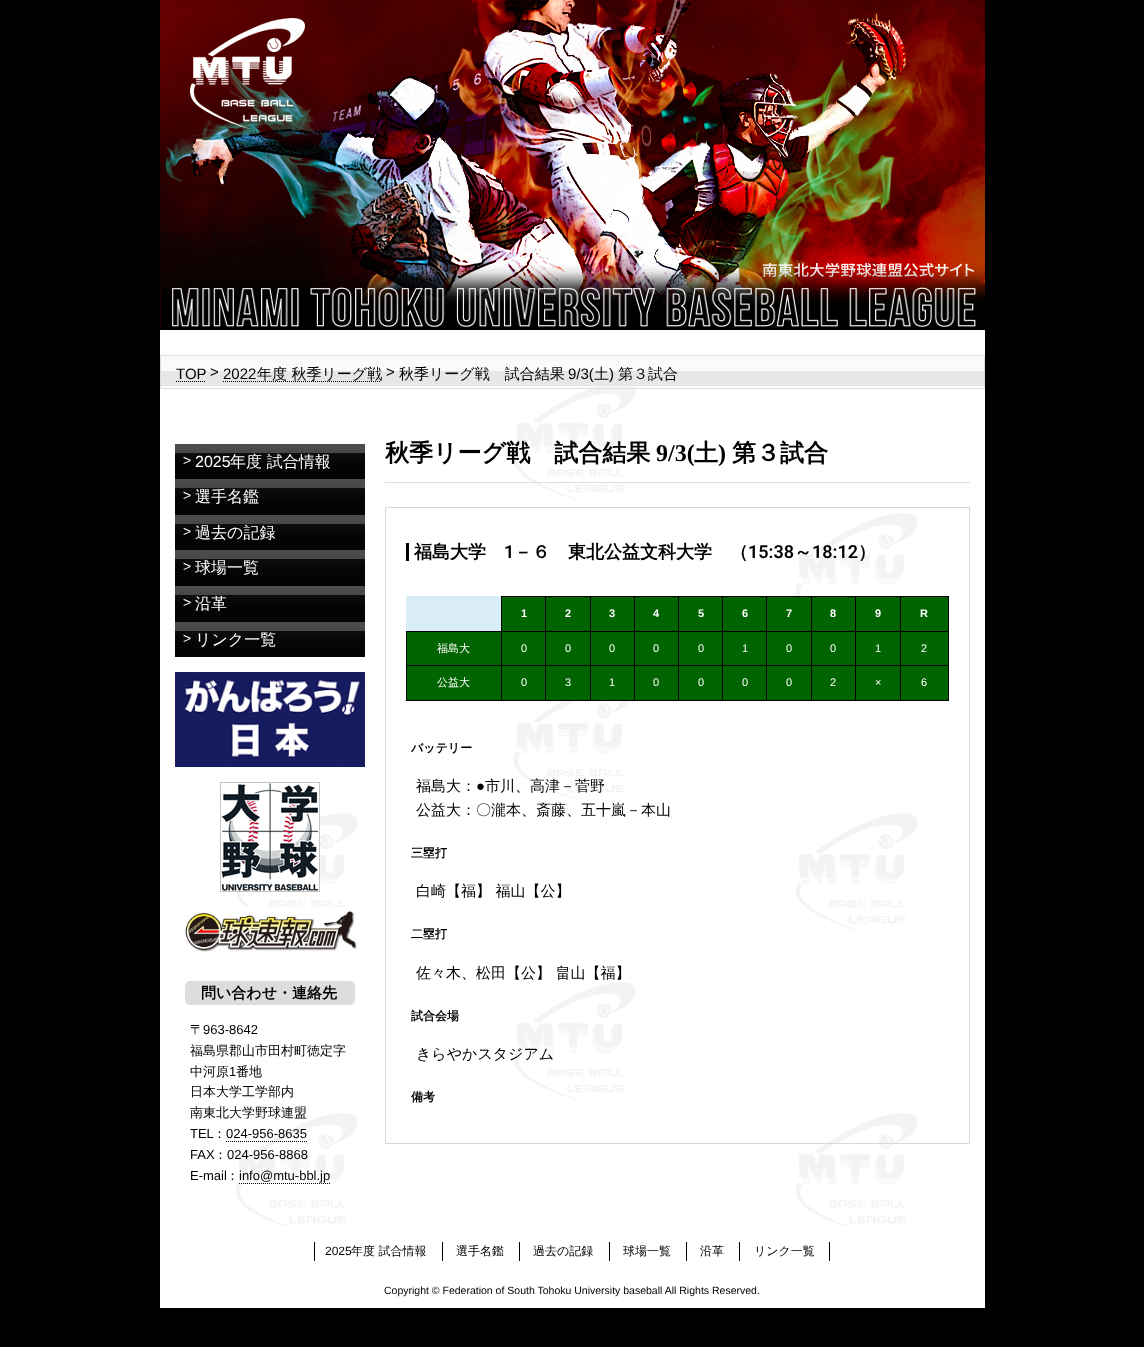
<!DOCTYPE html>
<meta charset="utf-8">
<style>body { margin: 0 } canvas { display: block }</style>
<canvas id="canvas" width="1144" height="1347"></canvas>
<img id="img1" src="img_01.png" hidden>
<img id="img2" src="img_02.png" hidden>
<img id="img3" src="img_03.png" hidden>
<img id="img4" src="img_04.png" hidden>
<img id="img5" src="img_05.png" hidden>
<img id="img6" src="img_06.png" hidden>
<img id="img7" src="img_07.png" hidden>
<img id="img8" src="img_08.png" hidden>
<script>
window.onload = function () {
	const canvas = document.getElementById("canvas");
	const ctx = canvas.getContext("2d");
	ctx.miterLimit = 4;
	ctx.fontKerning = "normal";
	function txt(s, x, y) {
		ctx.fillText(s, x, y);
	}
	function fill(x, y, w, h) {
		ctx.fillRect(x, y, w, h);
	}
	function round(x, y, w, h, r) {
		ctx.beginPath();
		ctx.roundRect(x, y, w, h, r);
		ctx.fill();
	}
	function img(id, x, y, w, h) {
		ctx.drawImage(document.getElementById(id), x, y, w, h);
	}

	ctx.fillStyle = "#000000";
	fill(0, 0, 1144, 1347);
	ctx.fillStyle = "#FFFFFF";
	fill(160, 330, 825, 978);
	img("img1", 160, 0, 825, 330);
	img("img2", 236, 386, 682, 840);
	img("img3", 161, 356, 823, 30);
	ctx.strokeStyle = "#DDDDDD";
	ctx.strokeRect(160.5, 355.5, 824, 33);
	ctx.beginPath();
	ctx.moveTo(176, 381.5);
	ctx.lineTo(206, 381.5);
	ctx.strokeStyle = "#000000";
	ctx.setLineDash([1, 1]);
	ctx.stroke();
	ctx.beginPath();
	ctx.moveTo(223, 381.5);
	ctx.lineTo(381, 381.5);
	ctx.stroke();
	img("img4", 175, 444, 190, 35);
	img("img5", 175, 479, 190, 36);
	img("img4", 175, 515, 190, 35);
	img("img5", 175, 550, 190, 36);
	img("img5", 175, 586, 190, 36);
	img("img4", 175, 622, 190, 35);
	img("img6", 175, 672, 190, 95);
	img("img7", 220, 782, 100, 110);
	img("img8", 175, 907, 189, 45);
	ctx.fillStyle = "#DDDDDD";
	round(185, 981, 170, 24, 5);
	ctx.beginPath();
	ctx.moveTo(226, 1141.5);
	ctx.lineTo(307, 1141.5);
	ctx.stroke();
	ctx.beginPath();
	ctx.moveTo(239, 1183.5);
	ctx.lineTo(331, 1183.5);
	ctx.stroke();
	fill(385, 482, 585, 1);
	ctx.strokeStyle = "#D8D8D8";
	ctx.setLineDash([]);
	ctx.strokeRect(385.5, 507.5, 584, 636);
	ctx.fillStyle = "#000000";
	fill(406, 543, 3, 18);
	ctx.fillStyle = "#D9EDF7";
	fill(406, 596, 95, 35);
	ctx.fillStyle = "#006400";
	fill(502, 597, 43, 34);
	ctx.fillStyle = "#000000";
	fill(900, 596, 49, 1);
	fill(900, 631, 49, 1);
	fill(900, 665, 49, 1);
	fill(948, 665, 1, 36);
	fill(900, 700, 49, 1);
	fill(900, 665, 1, 36);
	fill(855, 665, 46, 1);
	fill(900, 631, 1, 35);
	fill(855, 631, 46, 1);
	fill(900, 596, 1, 36);
	fill(855, 596, 46, 1);
	fill(855, 700, 46, 1);
	fill(855, 665, 1, 36);
	fill(811, 665, 45, 1);
	fill(855, 631, 1, 35);
	fill(811, 631, 45, 1);
	fill(855, 596, 1, 36);
	fill(811, 596, 45, 1);
	fill(811, 700, 45, 1);
	fill(811, 665, 1, 36);
	fill(766, 665, 46, 1);
	fill(811, 631, 1, 35);
	fill(766, 631, 46, 1);
	fill(811, 596, 1, 36);
	fill(766, 596, 46, 1);
	fill(766, 700, 46, 1);
	fill(766, 665, 1, 36);
	fill(722, 665, 45, 1);
	fill(766, 631, 1, 35);
	fill(722, 631, 45, 1);
	fill(766, 596, 1, 36);
	fill(722, 596, 45, 1);
	fill(722, 700, 45, 1);
	fill(722, 665, 1, 36);
	fill(678, 665, 45, 1);
	fill(722, 631, 1, 35);
	fill(678, 631, 45, 1);
	fill(722, 596, 1, 36);
	fill(678, 596, 45, 1);
	fill(678, 700, 45, 1);
	fill(678, 665, 1, 36);
	fill(634, 665, 45, 1);
	fill(678, 631, 1, 35);
	fill(634, 631, 45, 1);
	fill(678, 596, 1, 36);
	fill(634, 596, 45, 1);
	fill(634, 700, 45, 1);
	fill(634, 665, 1, 36);
	fill(590, 665, 45, 1);
	fill(634, 631, 1, 35);
	fill(590, 631, 45, 1);
	fill(634, 596, 1, 36);
	fill(590, 596, 45, 1);
	fill(590, 700, 45, 1);
	fill(590, 665, 1, 36);
	fill(545, 665, 46, 1);
	fill(590, 631, 1, 35);
	fill(545, 631, 46, 1);
	fill(590, 596, 1, 36);
	fill(545, 596, 46, 1);
	fill(545, 700, 46, 1);
	fill(545, 665, 1, 36);
	fill(501, 665, 45, 1);
	fill(545, 631, 1, 35);
	fill(501, 631, 45, 1);
	fill(545, 596, 1, 36);
	fill(501, 596, 45, 1);
	fill(501, 700, 45, 1);
	fill(501, 665, 1, 36);
	fill(406, 665, 96, 1);
	fill(501, 631, 1, 35);
	fill(406, 631, 96, 1);
	fill(501, 596, 1, 36);
	ctx.fillStyle = "#006400";
	fill(546, 597, 44, 34);
	fill(591, 597, 43, 34);
	fill(635, 597, 43, 34);
	fill(679, 597, 43, 34);
	fill(723, 597, 43, 34);
	fill(767, 597, 44, 34);
	fill(812, 597, 43, 34);
	fill(856, 597, 44, 34);
	fill(901, 597, 47, 34);
	ctx.fillStyle = "#000000";
	fill(948, 631, 1, 35);
	fill(948, 596, 1, 36);
	ctx.fillStyle = "#006400";
	fill(407, 632, 94, 33);
	ctx.fillStyle = "#000000";
	fill(406, 700, 96, 1);
	fill(406, 665, 1, 36);
	fill(406, 631, 1, 35);
	ctx.fillStyle = "#006400";
	fill(502, 632, 43, 33);
	fill(546, 632, 44, 33);
	fill(591, 632, 43, 33);
	fill(635, 632, 43, 33);
	fill(679, 632, 43, 33);
	fill(723, 632, 43, 33);
	fill(767, 632, 44, 33);
	fill(812, 632, 43, 33);
	fill(856, 632, 44, 33);
	fill(901, 632, 47, 33);
	fill(407, 666, 94, 34);
	fill(502, 666, 43, 34);
	fill(546, 666, 44, 34);
	fill(591, 666, 43, 34);
	fill(635, 666, 43, 34);
	fill(679, 666, 43, 34);
	fill(723, 666, 43, 34);
	fill(767, 666, 44, 34);
	fill(812, 666, 43, 34);
	fill(856, 666, 44, 34);
	fill(901, 666, 47, 34);
	ctx.fillStyle = "#000000";
	fill(442, 1242, 1, 19);
	fill(314, 1242, 1, 19);
	fill(519, 1242, 1, 19);
	fill(609, 1242, 1, 19);
	fill(686, 1242, 1, 19);
	fill(739, 1242, 1, 19);
	fill(829, 1242, 1, 19);
	ctx.font = "15px Liberation Sans";
	txt("TOP", 176, 379);
	txt(">", 210, 377);
	txt("2022", 223, 379);
	ctx.font = "500 15px WenQuanYi Zen Hei";
	txt("年度 秋季リーグ戦", 257, 379);
	ctx.font = "15px Liberation Sans";
	txt(">", 386, 377);
	ctx.font = "500 15px WenQuanYi Zen Hei";
	txt("秋季リーグ戦　試合結果", 399, 379);
	ctx.font = "15px Liberation Sans";
	txt("9/3(", 568, 379);
	ctx.font = "500 15px WenQuanYi Zen Hei";
	txt("土", 594, 379);
	ctx.font = "15px Liberation Sans";
	txt(")", 609, 379);
	ctx.font = "500 15px WenQuanYi Zen Hei";
	txt("第３試合", 618, 379);
	ctx.font = "14px Liberation Sans";
	ctx.fillStyle = "#FFFFFF";
	txt(">", 183, 465);
	ctx.font = "16px Liberation Sans";
	txt("2025", 195, 467);
	ctx.font = "500 16px WenQuanYi Zen Hei";
	txt("年度 試合情報", 230, 467);
	ctx.font = "14px Liberation Sans";
	txt(">", 183, 500);
	ctx.font = "500 16px WenQuanYi Zen Hei";
	txt("選手名鑑", 195, 502);
	ctx.font = "14px Liberation Sans";
	txt(">", 183, 536);
	ctx.font = "500 16px WenQuanYi Zen Hei";
	txt("過去の記録", 195, 538);
	ctx.font = "14px Liberation Sans";
	txt(">", 183, 571);
	ctx.font = "500 16px WenQuanYi Zen Hei";
	txt("球場一覧", 195, 573);
	ctx.font = "14px Liberation Sans";
	txt(">", 183, 607);
	ctx.font = "500 16px WenQuanYi Zen Hei";
	txt("沿革", 195, 609);
	ctx.font = "14px Liberation Sans";
	txt(">", 183, 643);
	ctx.font = "500 16px WenQuanYi Zen Hei";
	txt("リンク一覧", 195, 645);
	ctx.font = "bold 15px WenQuanYi Zen Hei";
	ctx.fillStyle = "#000000";
	txt("問い合わせ・連絡先", 201, 998);
	ctx.font = "500 13px WenQuanYi Zen Hei";
	txt("〒", 190, 1034);
	ctx.font = "13px Liberation Sans";
	txt("963-8642", 203, 1034);
	ctx.font = "500 13px WenQuanYi Zen Hei";
	txt("福島県郡山市田村町徳定字", 190, 1055);
	txt("中河原", 190, 1076);
	ctx.font = "13px Liberation Sans";
	txt("1", 229, 1076);
	ctx.font = "500 13px WenQuanYi Zen Hei";
	txt("番地", 236, 1076);
	txt("日本大学工学部内", 190, 1096);
	txt("南東北大学野球連盟", 190, 1117);
	ctx.font = "13px Liberation Sans";
	txt("TEL", 190, 1138);
	ctx.font = "500 13px WenQuanYi Zen Hei";
	txt("：", 213, 1138);
	ctx.font = "13px Liberation Sans";
	txt("024-956-8635", 226, 1138);
	txt("FAX", 190, 1159);
	ctx.font = "500 13px WenQuanYi Zen Hei";
	txt("：", 214, 1159);
	ctx.font = "13px Liberation Sans";
	txt("024-956-8868", 227, 1159);
	txt("E-mail", 190, 1180);
	ctx.font = "500 13px WenQuanYi Zen Hei";
	txt("：", 226, 1180);
	ctx.font = "13px Liberation Sans";
	txt("info@mtu-bbl.jp", 239, 1180);
	ctx.font = "bold 24px WenQuanYi Zen Hei";
	txt("秋季リーグ戦　試合結果", 385, 461);
	ctx.font = "bold 24px Liberation Serif";
	txt("9/3(", 656, 461);
	ctx.font = "bold 24px WenQuanYi Zen Hei";
	txt("土", 694, 461);
	ctx.font = "bold 24px Liberation Serif";
	txt(")", 718, 461);
	ctx.font = "bold 24px WenQuanYi Zen Hei";
	txt("第３試合", 732, 461);
	ctx.font = "bold 18px WenQuanYi Zen Hei";
	txt("福島大学", 414, 558);
	ctx.font = "600 18px Roboto";
	txt("1", 504, 558);
	ctx.font = "bold 18px WenQuanYi Zen Hei";
	txt("－６　東北公益文科大学　（", 514, 558);
	ctx.font = "600 18px Roboto";
	txt("15:38", 748, 558);
	ctx.font = "bold 18px WenQuanYi Zen Hei";
	txt("～", 794, 558);
	ctx.font = "600 18px Roboto";
	txt("18:12", 812, 558);
	ctx.font = "bold 18px WenQuanYi Zen Hei";
	txt("）", 858, 558);
	ctx.font = "bold 11px Liberation Sans";
	ctx.fillStyle = "#FFFFFF";
	txt("1", 521, 617);
	txt("2", 565, 617);
	txt("3", 609, 617);
	txt("4", 653, 617);
	txt("5", 698, 617);
	txt("6", 742, 617);
	txt("7", 786, 617);
	txt("8", 830, 617);
	txt("9", 875, 617);
	txt("R", 920, 617);
	ctx.font = "500 11px WenQuanYi Zen Hei";
	txt("福島大", 437, 652);
	ctx.font = "11px Liberation Sans";
	txt("0", 521, 652);
	txt("0", 565, 652);
	txt("0", 609, 652);
	txt("0", 653, 652);
	txt("0", 698, 652);
	txt("1", 742, 652);
	txt("0", 786, 652);
	txt("0", 830, 652);
	txt("1", 875, 652);
	txt("2", 921, 652);
	ctx.font = "500 11px WenQuanYi Zen Hei";
	txt("公益大", 437, 686);
	ctx.font = "11px Liberation Sans";
	txt("0", 521, 686);
	txt("3", 565, 686);
	txt("1", 609, 686);
	txt("0", 653, 686);
	txt("0", 698, 686);
	txt("0", 742, 686);
	txt("0", 786, 686);
	txt("2", 830, 686);
	txt("×", 875, 686);
	txt("6", 921, 686);
	ctx.font = "bold 12px WenQuanYi Zen Hei";
	ctx.fillStyle = "#000000";
	txt("バッテリー", 411, 752);
	ctx.font = "500 15px WenQuanYi Zen Hei";
	txt("福島大：", 416, 791);
	ctx.font = "15px Liberation Sans";
	txt("●", 476, 791);
	ctx.font = "500 15px WenQuanYi Zen Hei";
	txt("市川、高津－菅野", 485, 791);
	txt("公益大：〇瀧本、斎藤、五十嵐－本山", 416, 815);
	ctx.font = "bold 12px WenQuanYi Zen Hei";
	txt("三塁打", 411, 857);
	ctx.font = "500 15px WenQuanYi Zen Hei";
	txt("白崎【福】 福山【公】", 416, 896);
	ctx.font = "bold 12px WenQuanYi Zen Hei";
	txt("二塁打", 411, 938);
	ctx.font = "500 15px WenQuanYi Zen Hei";
	txt("佐々木、松田【公】 畠山【福】", 416, 978);
	ctx.font = "bold 12px WenQuanYi Zen Hei";
	txt("試合会場", 411, 1020);
	ctx.font = "500 15px WenQuanYi Zen Hei";
	txt("きらやかスタジアム", 416, 1059);
	ctx.font = "bold 12px WenQuanYi Zen Hei";
	txt("備考", 411, 1101);
	ctx.font = "12px Liberation Sans";
	txt("2025", 325, 1255);
	ctx.font = "500 12px WenQuanYi Zen Hei";
	txt("年度 試合情報", 351, 1255);
	txt("選手名鑑", 456, 1255);
	txt("過去の記録", 533, 1255);
	txt("球場一覧", 623, 1255);
	txt("沿革", 700, 1255);
	txt("リンク一覧", 754, 1255);
	ctx.font = "10.5px Liberation Sans";
	txt("Copyright © Federation of South Tohoku University baseball All Rights Reserved.", 384, 1294);
};
</script>
